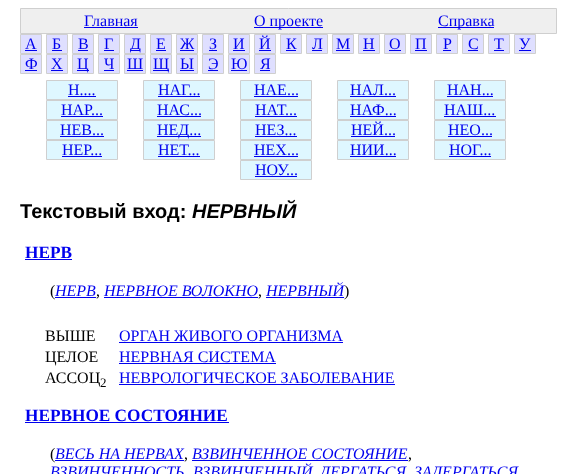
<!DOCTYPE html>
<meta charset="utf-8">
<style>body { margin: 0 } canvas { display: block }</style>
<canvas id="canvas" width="577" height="474"></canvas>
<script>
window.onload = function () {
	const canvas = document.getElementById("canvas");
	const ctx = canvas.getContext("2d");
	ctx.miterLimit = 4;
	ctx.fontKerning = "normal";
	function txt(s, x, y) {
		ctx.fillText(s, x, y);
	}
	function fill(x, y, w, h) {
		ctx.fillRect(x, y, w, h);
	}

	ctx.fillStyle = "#FFFFFF";
	fill(0, 0, 577, 474);
	ctx.fillStyle = "#EFEFEF";
	ctx.beginPath();
	ctx.rect(20.5, 8.5, 536, 25);
	ctx.fill();
	ctx.strokeStyle = "#CFCFCF";
	ctx.stroke();
	ctx.fillStyle = "#0000EE";
	fill(84, 27, 54, 1);
	fill(254, 27, 69, 1);
	fill(438, 27, 56, 1);
	ctx.fillStyle = "#DFDFFF";
	ctx.beginPath();
	ctx.rect(20.5, 34.5, 21, 19);
	ctx.fill();
	ctx.stroke();
	ctx.fillStyle = "#0000EE";
	fill(25, 50, 12, 1);
	ctx.fillStyle = "#DFDFFF";
	ctx.beginPath();
	ctx.rect(46.5, 34.5, 21, 19);
	ctx.fill();
	ctx.stroke();
	ctx.fillStyle = "#0000EE";
	fill(52, 50, 10, 1);
	ctx.fillStyle = "#DFDFFF";
	ctx.beginPath();
	ctx.rect(72.5, 34.5, 21, 19);
	ctx.fill();
	ctx.stroke();
	ctx.fillStyle = "#0000EE";
	fill(78, 50, 10, 1);
	ctx.fillStyle = "#DFDFFF";
	ctx.beginPath();
	ctx.rect(98.5, 34.5, 21, 19);
	ctx.fill();
	ctx.stroke();
	ctx.fillStyle = "#0000EE";
	fill(104, 50, 10, 1);
	ctx.fillStyle = "#DFDFFF";
	ctx.beginPath();
	ctx.rect(124.5, 34.5, 21, 19);
	ctx.fill();
	ctx.stroke();
	ctx.fillStyle = "#0000EE";
	fill(130, 50, 10, 1);
	ctx.fillStyle = "#DFDFFF";
	ctx.beginPath();
	ctx.rect(150.5, 34.5, 21, 19);
	ctx.fill();
	ctx.stroke();
	ctx.fillStyle = "#0000EE";
	fill(156, 50, 10, 1);
	ctx.fillStyle = "#DFDFFF";
	ctx.beginPath();
	ctx.rect(176.5, 34.5, 21, 19);
	ctx.fill();
	ctx.stroke();
	ctx.fillStyle = "#0000EE";
	fill(180, 50, 14, 1);
	ctx.fillStyle = "#DFDFFF";
	ctx.beginPath();
	ctx.rect(202.5, 34.5, 21, 19);
	ctx.fill();
	ctx.stroke();
	ctx.fillStyle = "#0000EE";
	fill(209, 50, 8, 1);
	ctx.fillStyle = "#DFDFFF";
	ctx.beginPath();
	ctx.rect(228.5, 34.5, 21, 19);
	ctx.fill();
	ctx.stroke();
	ctx.fillStyle = "#0000EE";
	fill(233, 50, 12, 1);
	ctx.fillStyle = "#DFDFFF";
	ctx.beginPath();
	ctx.rect(254.5, 34.5, 21, 19);
	ctx.fill();
	ctx.stroke();
	ctx.fillStyle = "#0000EE";
	fill(259, 50, 12, 1);
	ctx.fillStyle = "#DFDFFF";
	ctx.beginPath();
	ctx.rect(280.5, 34.5, 21, 19);
	ctx.fill();
	ctx.stroke();
	ctx.fillStyle = "#0000EE";
	fill(286, 50, 10, 1);
	ctx.fillStyle = "#DFDFFF";
	ctx.beginPath();
	ctx.rect(306.5, 34.5, 21, 19);
	ctx.fill();
	ctx.stroke();
	ctx.fillStyle = "#0000EE";
	fill(312, 50, 10, 1);
	ctx.fillStyle = "#DFDFFF";
	ctx.beginPath();
	ctx.rect(332.5, 34.5, 21, 19);
	ctx.fill();
	ctx.stroke();
	ctx.fillStyle = "#0000EE";
	fill(336, 50, 14, 1);
	ctx.fillStyle = "#DFDFFF";
	ctx.beginPath();
	ctx.rect(358.5, 34.5, 21, 19);
	ctx.fill();
	ctx.stroke();
	ctx.fillStyle = "#0000EE";
	fill(363, 50, 12, 1);
	ctx.fillStyle = "#DFDFFF";
	ctx.beginPath();
	ctx.rect(384.5, 34.5, 21, 19);
	ctx.fill();
	ctx.stroke();
	ctx.fillStyle = "#0000EE";
	fill(389, 50, 12, 1);
	ctx.fillStyle = "#DFDFFF";
	ctx.beginPath();
	ctx.rect(410.5, 34.5, 21, 19);
	ctx.fill();
	ctx.stroke();
	ctx.fillStyle = "#0000EE";
	fill(415, 50, 12, 1);
	ctx.fillStyle = "#DFDFFF";
	ctx.beginPath();
	ctx.rect(436.5, 34.5, 21, 19);
	ctx.fill();
	ctx.stroke();
	ctx.fillStyle = "#0000EE";
	fill(443, 50, 8, 1);
	ctx.fillStyle = "#DFDFFF";
	ctx.beginPath();
	ctx.rect(462.5, 34.5, 21, 19);
	ctx.fill();
	ctx.stroke();
	ctx.fillStyle = "#0000EE";
	fill(468, 50, 10, 1);
	ctx.fillStyle = "#DFDFFF";
	ctx.beginPath();
	ctx.rect(488.5, 34.5, 21, 19);
	ctx.fill();
	ctx.stroke();
	ctx.fillStyle = "#0000EE";
	fill(494, 50, 10, 1);
	ctx.fillStyle = "#DFDFFF";
	ctx.beginPath();
	ctx.rect(514.5, 34.5, 21, 19);
	ctx.fill();
	ctx.stroke();
	ctx.fillStyle = "#0000EE";
	fill(519, 50, 12, 1);
	ctx.fillStyle = "#DFDFFF";
	ctx.beginPath();
	ctx.rect(20.5, 54.5, 21, 19);
	ctx.fill();
	ctx.stroke();
	ctx.fillStyle = "#0000EE";
	fill(25, 70, 12, 1);
	ctx.fillStyle = "#DFDFFF";
	ctx.beginPath();
	ctx.rect(46.5, 54.5, 21, 19);
	ctx.fill();
	ctx.stroke();
	ctx.fillStyle = "#0000EE";
	fill(51, 70, 12, 1);
	ctx.fillStyle = "#DFDFFF";
	ctx.beginPath();
	ctx.rect(72.5, 54.5, 21, 19);
	ctx.fill();
	ctx.stroke();
	ctx.fillStyle = "#0000EE";
	fill(77, 70, 12, 1);
	ctx.fillStyle = "#DFDFFF";
	ctx.beginPath();
	ctx.rect(98.5, 54.5, 21, 19);
	ctx.fill();
	ctx.stroke();
	ctx.fillStyle = "#0000EE";
	fill(104, 70, 10, 1);
	ctx.fillStyle = "#DFDFFF";
	ctx.beginPath();
	ctx.rect(124.5, 54.5, 21, 19);
	ctx.fill();
	ctx.stroke();
	ctx.fillStyle = "#0000EE";
	fill(127, 70, 16, 1);
	ctx.fillStyle = "#DFDFFF";
	ctx.beginPath();
	ctx.rect(150.5, 54.5, 21, 19);
	ctx.fill();
	ctx.stroke();
	ctx.fillStyle = "#0000EE";
	fill(153, 70, 16, 1);
	ctx.fillStyle = "#DFDFFF";
	ctx.beginPath();
	ctx.rect(176.5, 54.5, 21, 19);
	ctx.fill();
	ctx.stroke();
	ctx.fillStyle = "#0000EE";
	fill(180, 70, 14, 1);
	ctx.fillStyle = "#DFDFFF";
	ctx.beginPath();
	ctx.rect(202.5, 54.5, 21, 19);
	ctx.fill();
	ctx.stroke();
	ctx.fillStyle = "#0000EE";
	fill(208, 70, 10, 1);
	ctx.fillStyle = "#DFDFFF";
	ctx.beginPath();
	ctx.rect(228.5, 54.5, 21, 19);
	ctx.fill();
	ctx.stroke();
	ctx.fillStyle = "#0000EE";
	fill(231, 70, 16, 1);
	ctx.fillStyle = "#DFDFFF";
	ctx.beginPath();
	ctx.rect(254.5, 54.5, 21, 19);
	ctx.fill();
	ctx.stroke();
	ctx.fillStyle = "#0000EE";
	fill(260, 70, 10, 1);
	ctx.fillStyle = "#DFF7FF";
	ctx.beginPath();
	ctx.rect(46.5, 80.5, 71, 19);
	ctx.fill();
	ctx.stroke();
	ctx.fillStyle = "#0000EE";
	fill(68, 96, 28, 1);
	ctx.fillStyle = "#DFF7FF";
	ctx.beginPath();
	ctx.rect(143.5, 80.5, 71, 19);
	ctx.fill();
	ctx.stroke();
	ctx.fillStyle = "#0000EE";
	fill(158, 96, 42, 1);
	ctx.fillStyle = "#DFF7FF";
	ctx.beginPath();
	ctx.rect(240.5, 80.5, 71, 19);
	ctx.fill();
	ctx.stroke();
	ctx.fillStyle = "#0000EE";
	fill(254, 96, 44, 1);
	ctx.fillStyle = "#DFF7FF";
	ctx.beginPath();
	ctx.rect(337.5, 80.5, 71, 19);
	ctx.fill();
	ctx.stroke();
	ctx.fillStyle = "#0000EE";
	fill(350, 96, 46, 1);
	ctx.fillStyle = "#DFF7FF";
	ctx.beginPath();
	ctx.rect(434.5, 80.5, 71, 19);
	ctx.fill();
	ctx.stroke();
	ctx.fillStyle = "#0000EE";
	fill(447, 96, 46, 1);
	ctx.fillStyle = "#DFF7FF";
	ctx.beginPath();
	ctx.rect(46.5, 100.5, 71, 19);
	ctx.fill();
	ctx.stroke();
	ctx.fillStyle = "#0000EE";
	fill(61, 116, 42, 1);
	ctx.fillStyle = "#DFF7FF";
	ctx.beginPath();
	ctx.rect(143.5, 100.5, 71, 19);
	ctx.fill();
	ctx.stroke();
	ctx.fillStyle = "#0000EE";
	fill(157, 116, 44, 1);
	ctx.fillStyle = "#DFF7FF";
	ctx.beginPath();
	ctx.rect(240.5, 100.5, 71, 19);
	ctx.fill();
	ctx.stroke();
	ctx.fillStyle = "#0000EE";
	fill(255, 116, 42, 1);
	ctx.fillStyle = "#DFF7FF";
	ctx.beginPath();
	ctx.rect(337.5, 100.5, 71, 19);
	ctx.fill();
	ctx.stroke();
	ctx.fillStyle = "#0000EE";
	fill(350, 116, 46, 1);
	ctx.fillStyle = "#DFF7FF";
	ctx.beginPath();
	ctx.rect(434.5, 100.5, 71, 19);
	ctx.fill();
	ctx.stroke();
	ctx.fillStyle = "#0000EE";
	fill(444, 116, 52, 1);
	ctx.fillStyle = "#DFF7FF";
	ctx.beginPath();
	ctx.rect(46.5, 120.5, 71, 19);
	ctx.fill();
	ctx.stroke();
	ctx.fillStyle = "#0000EE";
	fill(60, 136, 44, 1);
	ctx.fillStyle = "#DFF7FF";
	ctx.beginPath();
	ctx.rect(143.5, 120.5, 71, 19);
	ctx.fill();
	ctx.stroke();
	ctx.fillStyle = "#0000EE";
	fill(157, 136, 44, 1);
	ctx.fillStyle = "#DFF7FF";
	ctx.beginPath();
	ctx.rect(240.5, 120.5, 71, 19);
	ctx.fill();
	ctx.stroke();
	ctx.fillStyle = "#0000EE";
	fill(255, 136, 42, 1);
	ctx.fillStyle = "#DFF7FF";
	ctx.beginPath();
	ctx.rect(337.5, 120.5, 71, 19);
	ctx.fill();
	ctx.stroke();
	ctx.fillStyle = "#0000EE";
	fill(351, 136, 44, 1);
	ctx.fillStyle = "#DFF7FF";
	ctx.beginPath();
	ctx.rect(434.5, 120.5, 71, 19);
	ctx.fill();
	ctx.stroke();
	ctx.fillStyle = "#0000EE";
	fill(448, 136, 44, 1);
	ctx.fillStyle = "#DFF7FF";
	ctx.beginPath();
	ctx.rect(46.5, 140.5, 71, 19);
	ctx.fill();
	ctx.stroke();
	ctx.fillStyle = "#0000EE";
	fill(62, 156, 40, 1);
	ctx.fillStyle = "#DFF7FF";
	ctx.beginPath();
	ctx.rect(143.5, 140.5, 71, 19);
	ctx.fill();
	ctx.stroke();
	ctx.fillStyle = "#0000EE";
	fill(158, 156, 42, 1);
	ctx.fillStyle = "#DFF7FF";
	ctx.beginPath();
	ctx.rect(240.5, 140.5, 71, 19);
	ctx.fill();
	ctx.stroke();
	ctx.fillStyle = "#0000EE";
	fill(254, 156, 44, 1);
	ctx.fillStyle = "#DFF7FF";
	ctx.beginPath();
	ctx.rect(337.5, 140.5, 71, 19);
	ctx.fill();
	ctx.stroke();
	ctx.fillStyle = "#0000EE";
	fill(350, 156, 46, 1);
	ctx.fillStyle = "#DFF7FF";
	ctx.beginPath();
	ctx.rect(434.5, 140.5, 71, 19);
	ctx.fill();
	ctx.stroke();
	ctx.fillStyle = "#0000EE";
	fill(449, 156, 42, 1);
	ctx.fillStyle = "#DFF7FF";
	ctx.beginPath();
	ctx.rect(240.5, 160.5, 71, 19);
	ctx.fill();
	ctx.stroke();
	ctx.fillStyle = "#0000EE";
	fill(255, 176, 42, 1);
	fill(25, 259, 47, 1);
	fill(55, 297, 41, 1);
	fill(104, 297, 154, 1);
	fill(266, 297, 78, 1);
	fill(119, 342, 224, 1);
	fill(119, 363, 157, 1);
	fill(119, 384, 276, 1);
	fill(25, 422, 204, 1);
	fill(55, 460, 129, 1);
	fill(192, 460, 216, 1);
	ctx.font = "16px Liberation Serif";
	txt("Главная", 84, 26);
	txt("О проекте", 254, 26);
	txt("Справка", 438, 26);
	txt("А", 25, 49);
	txt("Б", 52, 49);
	txt("В", 78, 49);
	txt("Г", 104, 49);
	txt("Д", 130, 49);
	txt("Е", 156, 49);
	txt("Ж", 180, 49);
	txt("З", 209, 49);
	txt("И", 233, 49);
	txt("Й", 259, 49);
	txt("К", 286, 49);
	txt("Л", 312, 49);
	txt("М", 336, 49);
	txt("Н", 363, 49);
	txt("О", 389, 49);
	txt("П", 415, 49);
	txt("Р", 443, 49);
	txt("С", 468, 49);
	txt("Т", 494, 49);
	txt("У", 519, 49);
	txt("Ф", 25, 69);
	txt("Х", 51, 69);
	txt("Ц", 77, 69);
	txt("Ч", 104, 69);
	txt("Ш", 127, 69);
	txt("Щ", 153, 69);
	txt("Ы", 180, 69);
	txt("Э", 208, 69);
	txt("Ю", 231, 69);
	txt("Я", 260, 69);
	txt("Н....", 68, 95);
	txt("НАГ...", 158, 95);
	txt("НАЕ...", 254, 95);
	txt("НАЛ...", 350, 95);
	txt("НАН...", 447, 95);
	txt("НАР...", 61, 115);
	txt("НАС...", 157, 115);
	txt("НАТ...", 255, 115);
	txt("НАФ...", 350, 115);
	txt("НАШ...", 444, 115);
	txt("НЕВ...", 60, 135);
	txt("НЕД...", 157, 135);
	txt("НЕЗ...", 255, 135);
	txt("НЕЙ...", 351, 135);
	txt("НЕО...", 448, 135);
	txt("НЕР...", 62, 155);
	txt("НЕТ...", 158, 155);
	txt("НЕХ...", 254, 155);
	txt("НИИ...", 350, 155);
	txt("НОГ...", 449, 155);
	txt("НОУ...", 255, 175);
	ctx.font = "bold 20px Liberation Sans";
	ctx.fillStyle = "#000000";
	txt("Текстовый вход:", 20, 218);
	ctx.font = "italic bold 20px Liberation Sans";
	txt("НЕРВНЫЙ", 192, 218);
	ctx.font = "bold 17.25px Liberation Serif";
	ctx.fillStyle = "#0000EE";
	txt("НЕРВ", 25, 258);
	ctx.font = "16px Liberation Serif";
	ctx.fillStyle = "#000000";
	txt("(", 50, 296);
	ctx.font = "italic 16px Liberation Serif";
	ctx.fillStyle = "#0000EE";
	txt("НЕРВ", 55, 296);
	ctx.font = "16px Liberation Serif";
	ctx.fillStyle = "#000000";
	txt(",", 96, 296);
	ctx.font = "italic 16px Liberation Serif";
	ctx.fillStyle = "#0000EE";
	txt("НЕРВНОЕ ВОЛОКНО", 104, 296);
	ctx.font = "16px Liberation Serif";
	ctx.fillStyle = "#000000";
	txt(",", 258, 296);
	ctx.font = "italic 16px Liberation Serif";
	ctx.fillStyle = "#0000EE";
	txt("НЕРВНЫЙ", 266, 296);
	ctx.font = "16px Liberation Serif";
	ctx.fillStyle = "#000000";
	txt(")", 344, 296);
	txt("ВЫШЕ", 45, 341);
	ctx.fillStyle = "#0000EE";
	txt("ОРГАН ЖИВОГО ОРГАНИЗМА", 119, 341);
	ctx.fillStyle = "#000000";
	txt("ЦЕЛОЕ", 45, 362);
	ctx.fillStyle = "#0000EE";
	txt("НЕРВНАЯ СИСТЕМА", 119, 362);
	ctx.fillStyle = "#000000";
	txt("АССОЦ", 45, 383);
	ctx.font = "13px Liberation Serif";
	txt("2", 100, 387);
	ctx.font = "16px Liberation Serif";
	ctx.fillStyle = "#0000EE";
	txt("НЕВРОЛОГИЧЕСКОЕ ЗАБОЛЕВАНИЕ", 119, 383);
	ctx.font = "bold 17.25px Liberation Serif";
	txt("НЕРВНОЕ СОСТОЯНИЕ", 25, 421);
	ctx.font = "16px Liberation Serif";
	ctx.fillStyle = "#000000";
	txt("(", 50, 459);
	ctx.font = "italic 16px Liberation Serif";
	ctx.fillStyle = "#0000EE";
	txt("ВЕСЬ НА НЕРВАХ", 55, 459);
	ctx.font = "16px Liberation Serif";
	ctx.fillStyle = "#000000";
	txt(",", 184, 459);
	ctx.font = "italic 16px Liberation Serif";
	ctx.fillStyle = "#0000EE";
	txt("ВЗВИНЧЕННОЕ СОСТОЯНИЕ", 192, 459);
	ctx.font = "16px Liberation Serif";
	ctx.fillStyle = "#000000";
	txt(",", 408, 459);
	ctx.font = "italic 16px Liberation Serif";
	ctx.fillStyle = "#0000EE";
	txt("ВЗВИНЧЕННОСТЬ", 50, 477);
	txt("ВЗВИНЧЕННЫЙ", 193, 477);
	txt("ДЕРГАТЬСЯ", 320, 477);
	txt("ЗАДЕРГАТЬСЯ", 414, 477);
};
</script>
